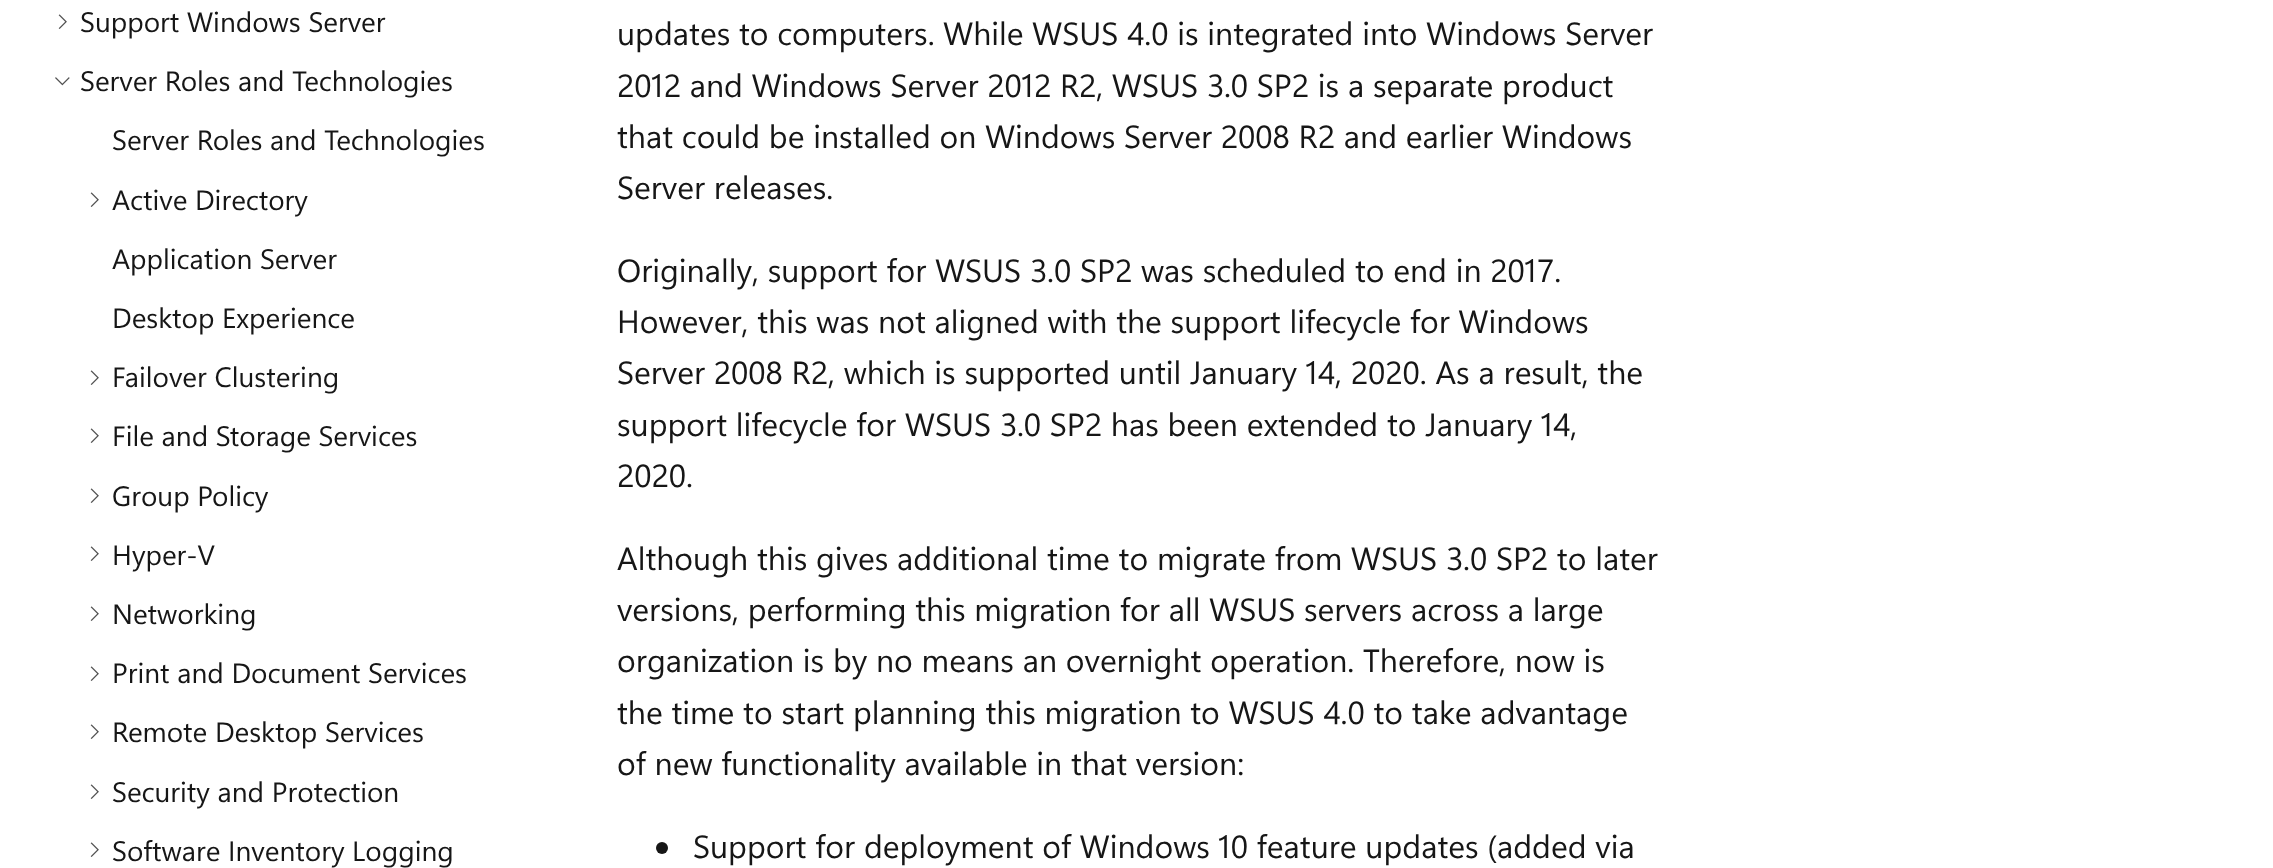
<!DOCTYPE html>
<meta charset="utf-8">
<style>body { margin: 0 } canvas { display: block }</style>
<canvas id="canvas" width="2273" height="868"></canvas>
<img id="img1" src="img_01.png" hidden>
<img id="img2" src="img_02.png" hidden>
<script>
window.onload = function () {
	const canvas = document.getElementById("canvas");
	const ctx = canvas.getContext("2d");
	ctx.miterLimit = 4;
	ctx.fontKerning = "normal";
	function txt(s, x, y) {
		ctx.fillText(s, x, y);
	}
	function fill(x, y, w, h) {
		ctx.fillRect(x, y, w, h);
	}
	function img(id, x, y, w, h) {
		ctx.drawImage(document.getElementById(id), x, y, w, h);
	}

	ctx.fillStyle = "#FFFFFF";
	fill(0, 0, 2273, 868);
	img("img1", 58, 14, 9, 15);
	img("img2", 55, 77, 15, 9);
	img("img1", 90, 192, 9, 15);
	img("img1", 90, 370, 9, 15);
	img("img1", 90, 428, 9, 15);
	img("img1", 90, 488, 9, 15);
	img("img1", 90, 546, 9, 15);
	img("img1", 90, 606, 9, 15);
	img("img1", 90, 666, 9, 15);
	img("img1", 90, 724, 9, 15);
	img("img1", 90, 784, 9, 15);
	img("img1", 90, 842, 9, 15);
	ctx.fillStyle = "#161616";
	ctx.beginPath();
	ctx.arc(662, 848, 6, 0, Math.PI * 2);
	ctx.fill();
	ctx.font = "28px Segoe UI";
	txt("Support Windows Server", 80, 32);
	txt("Server Roles and Technologies", 80, 91);
	txt("Server Roles and Technologies", 112, 150);
	txt("Active Directory", 112, 210);
	txt("Application Server", 112, 269);
	txt("Desktop Experience", 112, 328);
	txt("Failover Clustering", 112, 387);
	txt("File and Storage Services", 112, 446);
	txt("Group Policy", 112, 506);
	txt("Hyper-V", 112, 565);
	txt("Networking", 112, 624);
	txt("Print and Document Services", 112, 683);
	txt("Remote Desktop Services", 112, 742);
	txt("Security and Protection", 112, 802);
	txt("Software Inventory Logging", 112, 861);
	ctx.font = "32px Segoe UI";
	txt("updates to computers. While WSUS 4.0 is integrated into Windows Server", 617, 45);
	txt("2012 and Windows Server 2012 R2, WSUS 3.0 SP2 is a separate product", 617, 97);
	txt("that could be installed on Windows Server 2008 R2 and earlier Windows", 617, 148);
	txt("Server releases.", 617, 199);
	txt("Originally, support for WSUS 3.0 SP2 was scheduled to end in 2017.", 617, 282);
	txt("However, this was not aligned with the support lifecycle for Windows", 617, 333);
	txt("Server 2008 R2, which is supported until January 14, 2020. As a result, the", 617, 384);
	txt("support lifecycle for WSUS 3.0 SP2 has been extended to January 14,", 617, 436);
	txt("2020.", 617, 487);
	txt("Although this gives additional time to migrate from WSUS 3.0 SP2 to later", 617, 570);
	txt("versions, performing this migration for all WSUS servers across a large", 617, 621);
	txt("organization is by no means an overnight operation. Therefore, now is", 617, 672);
	txt("the time to start planning this migration to WSUS 4.0 to take advantage", 617, 724);
	txt("of new functionality available in that version:", 617, 775);
	txt("Support for deployment of Windows 10 feature updates (added via", 693, 858);
};
</script>
